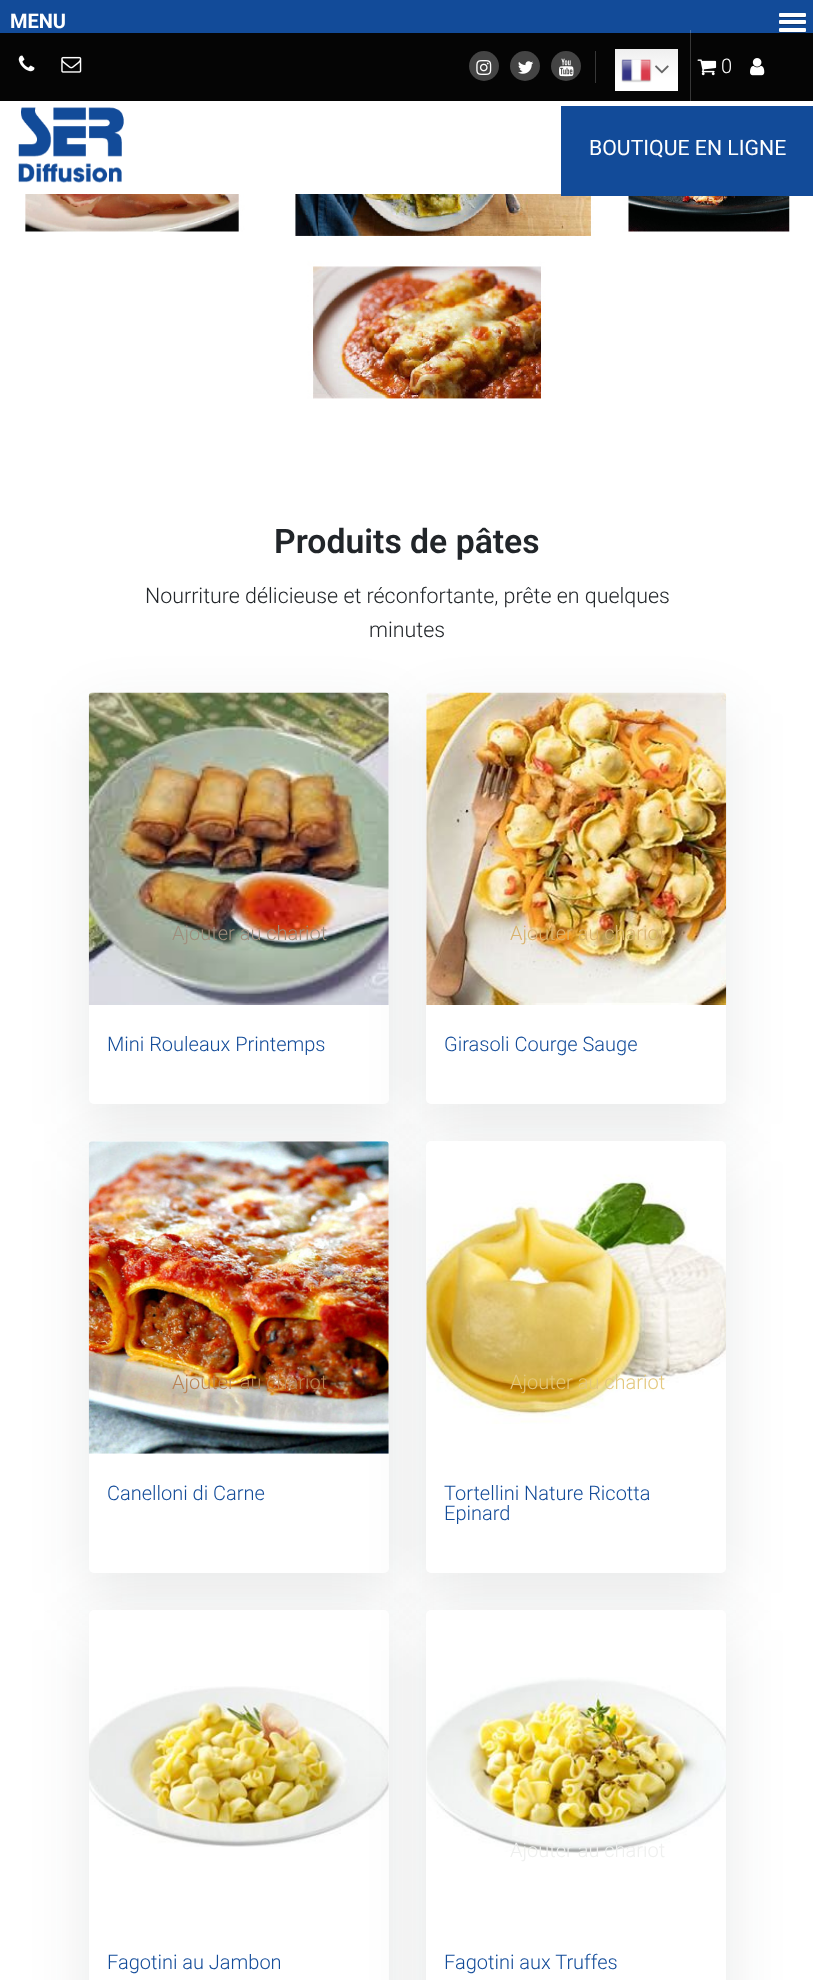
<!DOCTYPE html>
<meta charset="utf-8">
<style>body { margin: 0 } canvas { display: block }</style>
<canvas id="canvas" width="813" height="1980"></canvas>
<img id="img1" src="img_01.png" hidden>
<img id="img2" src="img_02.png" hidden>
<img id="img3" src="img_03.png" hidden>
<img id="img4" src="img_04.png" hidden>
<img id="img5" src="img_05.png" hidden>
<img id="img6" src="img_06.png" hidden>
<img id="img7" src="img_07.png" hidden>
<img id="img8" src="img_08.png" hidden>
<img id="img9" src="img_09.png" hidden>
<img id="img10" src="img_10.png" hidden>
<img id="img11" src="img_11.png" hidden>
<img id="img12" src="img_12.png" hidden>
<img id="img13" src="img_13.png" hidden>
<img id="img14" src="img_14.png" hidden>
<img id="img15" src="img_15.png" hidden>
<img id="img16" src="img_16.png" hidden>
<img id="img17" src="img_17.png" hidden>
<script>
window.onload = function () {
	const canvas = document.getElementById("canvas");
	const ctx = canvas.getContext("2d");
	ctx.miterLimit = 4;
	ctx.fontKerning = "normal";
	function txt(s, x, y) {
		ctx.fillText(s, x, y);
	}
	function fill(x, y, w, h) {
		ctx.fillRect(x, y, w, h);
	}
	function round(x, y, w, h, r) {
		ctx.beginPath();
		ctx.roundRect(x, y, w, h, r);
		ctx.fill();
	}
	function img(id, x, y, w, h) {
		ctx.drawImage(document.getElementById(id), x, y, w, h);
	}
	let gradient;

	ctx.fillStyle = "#FFFFFF";
	fill(0, 0, 813, 1980);
	ctx.fillStyle = "#124B99";
	fill(0, 0, 813, 33);
	ctx.fillStyle = "#0E3873";
	ctx.beginPath();
	ctx.moveTo(779, 16);
	ctx.bezierCurveTo(779, 19, 780.5, 18, 784, 18);
	ctx.lineTo(801, 18);
	ctx.bezierCurveTo(804.5, 18, 806, 19, 806, 16);
	ctx.lineTo(805, 16);
	ctx.lineTo(780, 16);
	ctx.closePath();
	ctx.fill();
	ctx.fillStyle = "#FFFFFF";
	round(779, 13, 27, 4, 1);
	ctx.fillStyle = "#0E3873";
	ctx.beginPath();
	ctx.moveTo(779, 23.5);
	ctx.bezierCurveTo(779, 26, 781.5, 25, 784, 25);
	ctx.lineTo(801, 25);
	ctx.bezierCurveTo(803.5, 25, 806, 26, 806, 23.5);
	ctx.lineTo(805, 23.5);
	ctx.lineTo(780, 23.5);
	ctx.closePath();
	ctx.fill();
	ctx.fillStyle = "#FFFFFF";
	round(779, 20, 27, 4, 1);
	ctx.fillStyle = "#0E3873";
	ctx.beginPath();
	ctx.moveTo(779, 31);
	ctx.bezierCurveTo(779, 34, 780.5, 33, 784, 33);
	ctx.lineTo(801, 33);
	ctx.bezierCurveTo(804.5, 33, 806, 34, 806, 31);
	ctx.lineTo(805, 31);
	ctx.lineTo(780, 31);
	ctx.closePath();
	ctx.fill();
	ctx.fillStyle = "#FFFFFF";
	round(779, 28, 27, 4, 1);
	ctx.fillStyle = "#050505";
	fill(0, 33, 813, 68);
	img("img1", 18, 55, 17, 17);
	img("img2", 61, 56, 21, 17);
	ctx.fillStyle = "#373737";
	fill(595, 51, 1, 32);
	ctx.fillStyle = "#444444";
	ctx.beginPath();
	ctx.arc(484, 66, 15, 0, Math.PI * 2);
	ctx.fill();
	img("img3", 476, 60, 16, 15);
	ctx.beginPath();
	ctx.arc(525, 66, 15, 0, Math.PI * 2);
	ctx.fill();
	img("img4", 518, 61, 16, 13);
	ctx.beginPath();
	ctx.arc(566, 66, 15, 0, Math.PI * 2);
	ctx.fill();
	img("img5", 559, 58, 15, 19);
	ctx.fillStyle = "rgba(255, 255, 255, 0.2)";
	fill(690, 30, 1, 74);
	gradient = ctx.createLinearGradient(646, 49, 646, 91);
	gradient.addColorStop(0, "#EFEFEF");
	gradient.addColorStop(0.7, "#FFFFFF");
	ctx.fillStyle = gradient;
	fill(615, 49, 63, 42);
	img("img6", 621, 59, 31, 24);
	img("img7", 655, 65, 14, 9);
	img("img8", 697, 59, 20, 17);
	img("img9", 750, 58, 15, 18);
	img("img10", 18, 107, 106, 76);
	img("img11", 25, 194, 765, 205);
	ctx.fillStyle = "#124B99";
	fill(561, 106, 252, 90);
	ctx.fillStyle = "rgba(33, 37, 41, 0.1)";
	ctx.filter = "blur(30px)";
	ctx.beginPath();
	ctx.roundRect(89, 713, 300, 411, 5);
	ctx.fill();
	ctx.filter = "none";
	ctx.fillStyle = "#FFFFFF";
	round(89, 693, 300, 411, 5);
	img("img12", 88, 692, 301, 313);
	ctx.fillStyle = "rgba(33, 37, 41, 0.1)";
	ctx.filter = "blur(30px)";
	ctx.beginPath();
	ctx.roundRect(426, 713, 300, 411, 5);
	ctx.fill();
	ctx.filter = "none";
	ctx.fillStyle = "#FFFFFF";
	round(426, 693, 300, 411, 5);
	img("img13", 426, 692, 301, 313);
	ctx.fillStyle = "rgba(33, 37, 41, 0.1)";
	ctx.filter = "blur(30px)";
	ctx.beginPath();
	ctx.roundRect(89, 1161, 300, 432, 5);
	ctx.fill();
	ctx.filter = "none";
	ctx.fillStyle = "#FFFFFF";
	round(89, 1141, 300, 432, 5);
	img("img14", 88, 1141, 301, 313);
	ctx.fillStyle = "rgba(33, 37, 41, 0.1)";
	ctx.filter = "blur(30px)";
	ctx.beginPath();
	ctx.roundRect(426, 1161, 300, 432, 5);
	ctx.fill();
	ctx.filter = "none";
	ctx.fillStyle = "#FFFFFF";
	round(426, 1141, 300, 432, 5);
	img("img15", 426, 1174, 300, 250);
	ctx.fillStyle = "rgba(33, 37, 41, 0.1)";
	ctx.filter = "blur(30px)";
	ctx.beginPath();
	ctx.roundRect(89, 1630, 300, 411, 5);
	ctx.fill();
	ctx.filter = "none";
	ctx.fillStyle = "#FFFFFF";
	round(89, 1610, 300, 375, 5);
	img("img16", 89, 1686, 300, 161);
	ctx.fillStyle = "rgba(33, 37, 41, 0.1)";
	ctx.filter = "blur(30px)";
	ctx.beginPath();
	ctx.roundRect(426, 1630, 300, 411, 5);
	ctx.fill();
	ctx.filter = "none";
	ctx.fillStyle = "#FFFFFF";
	round(426, 1610, 300, 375, 5);
	img("img17", 426, 1677, 300, 176);
	ctx.font = "bold 20px Roboto";
	txt("MENU", 10, 28);
	ctx.font = "300 20px Roboto";
	txt("0", 721, 73);
	ctx.font = "21.25px Roboto";
	txt("BOUTIQUE EN LIGNE", 589, 155);
	ctx.font = "600 33.75px Roboto";
	ctx.fillStyle = "#212529";
	txt("Produits de pâtes", 274, 553);
	ctx.font = "300 21.4px Roboto";
	txt("Nourriture délicieuse et réconfortante, prête en quelques", 145, 603);
	txt("minutes", 369, 637);
	ctx.font = "300 20px Roboto";
	ctx.fillStyle = "#9F8E7D";
	txt("Ajouter au chariot", 172, 940);
	ctx.fillStyle = "#124B99";
	txt("Mini Rouleaux Printemps", 107, 1051);
	ctx.fillStyle = "#D9B36F";
	txt("Ajouter au chariot", 510, 940);
	ctx.fillStyle = "#124B99";
	txt("Girasoli Courge Sauge", 444, 1051);
	ctx.fillStyle = "#BA8354";
	txt("Ajouter au chariot", 172, 1389);
	ctx.fillStyle = "#124B99";
	txt("Canelloni di Carne", 107, 1500);
	ctx.fillStyle = "#E3C77D";
	txt("Ajouter au chariot", 510, 1389);
	ctx.fillStyle = "#124B99";
	txt("Tortellini Nature Ricotta", 444, 1500);
	txt("Epinard", 444, 1520);
	txt("Fagotini au Jambon", 107, 1969);
	ctx.fillStyle = "#EEEFEE";
	txt("Ajouter au chariot", 510, 1857);
	ctx.fillStyle = "#124B99";
	txt("Fagotini aux Truffes", 444, 1969);
};
</script>
